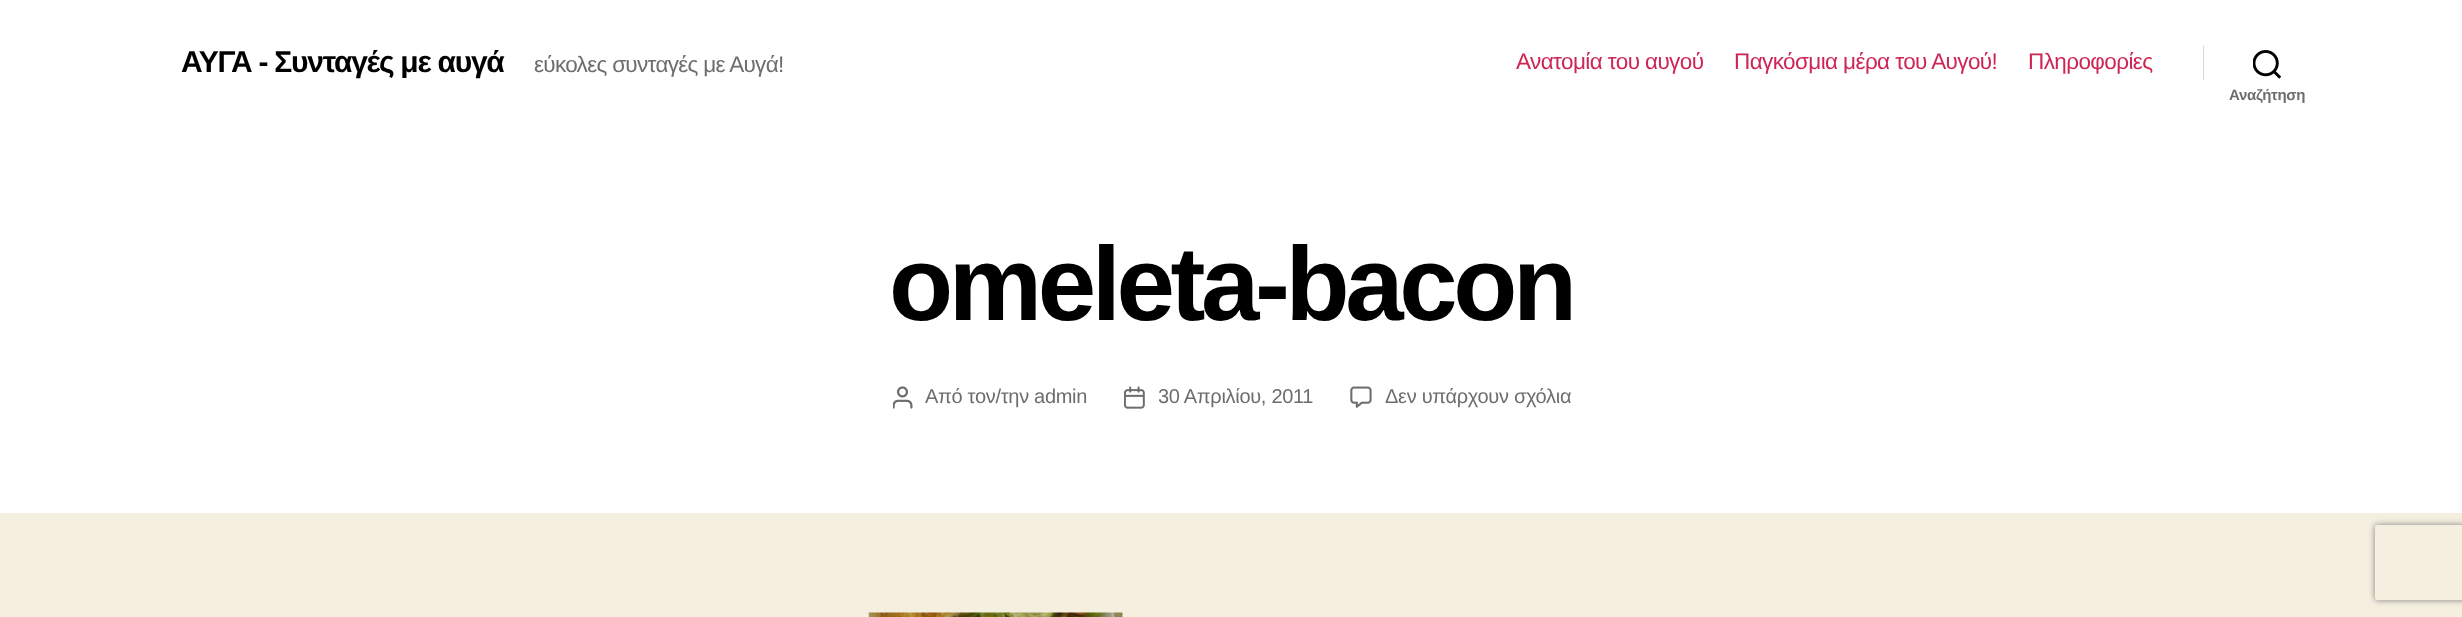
<!DOCTYPE html>
<meta charset="utf-8">
<style>body { margin: 0 } canvas { display: block }</style>
<canvas id="canvas" width="2462" height="617"></canvas>
<img id="img1" src="img_01.png" hidden>
<img id="img2" src="img_02.png" hidden>
<img id="img3" src="img_03.png" hidden>
<img id="img4" src="img_04.png" hidden>
<img id="img5" src="img_05.png" hidden>
<script>
window.onload = function () {
	const canvas = document.getElementById("canvas");
	const ctx = canvas.getContext("2d");
	ctx.miterLimit = 4;
	ctx.fontKerning = "normal";
	function txt(s, x, y) {
		ctx.fillText(s, x, y);
	}
	function fill(x, y, w, h) {
		ctx.fillRect(x, y, w, h);
	}
	function img(id, x, y, w, h) {
		ctx.drawImage(document.getElementById(id), x, y, w, h);
	}

	ctx.fillStyle = "#F5EFE0";
	fill(0, 0, 2462, 617);
	ctx.fillStyle = "#FFFFFF";
	fill(0, 0, 2462, 513);
	ctx.fillStyle = "#DCD7CA";
	fill(2203, 46, 1, 34);
	img("img1", 2253, 50, 28, 29);
	img("img2", 893, 386, 20, 23);
	img("img3", 1124, 386, 21, 23);
	img("img4", 1350, 386, 22, 22);
	img("img5", 868, 612, 255, 5);
	ctx.save();
	ctx.beginPath();
	ctx.moveTo(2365, 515);
	ctx.lineTo(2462, 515);
	ctx.lineTo(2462, 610);
	ctx.lineTo(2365, 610);
	ctx.closePath();
	ctx.moveTo(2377.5, 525);
	ctx.lineTo(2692.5, 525);
	ctx.bezierCurveTo(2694, 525, 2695, 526, 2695, 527.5);
	ctx.lineTo(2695, 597.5);
	ctx.bezierCurveTo(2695, 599, 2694, 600, 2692.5, 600);
	ctx.lineTo(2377.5, 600);
	ctx.bezierCurveTo(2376, 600, 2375, 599, 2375, 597.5);
	ctx.lineTo(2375, 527.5);
	ctx.bezierCurveTo(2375, 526, 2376, 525, 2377.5, 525);
	ctx.closePath();
	ctx.clip("evenodd");
	ctx.fillStyle = "#808080";
	ctx.filter = "blur(3px)";
	ctx.beginPath();
	ctx.roundRect(2375, 525, 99, 75, 2.5);
	ctx.fill();
	ctx.filter = "none";
	ctx.restore();
	ctx.letterSpacing = "-1.25px";
	ctx.font = "bold 30px Liberation Sans";
	ctx.fillStyle = "#000000";
	txt("ΑΥΓΑ - Συνταγές με αυγά", 181, 72);
	ctx.letterSpacing = "-0.7px";
	ctx.font = "22.5px Liberation Sans";
	ctx.fillStyle = "#6D6D6D";
	txt("εύκολες συνταγές με Αυγά!", 534, 72);
	ctx.letterSpacing = "-0.6px";
	ctx.fillStyle = "#CD2653";
	txt("Ανατομία του αυγού", 1516, 69);
	txt("Παγκόσμια μέρα του Αυγού!", 1734, 69);
	txt("Πληροφορίες", 2028, 69);
	ctx.letterSpacing = "-0.3px";
	ctx.font = "bold 15px Liberation Sans";
	ctx.fillStyle = "#6D6D6D";
	txt("Αναζήτηση", 2229, 100);
	ctx.letterSpacing = "-4.4px";
	ctx.font = "bold 105px Liberation Sans";
	ctx.fillStyle = "#000000";
	txt("omeleta-bacon", 889, 320);
	ctx.letterSpacing = "-0.3px";
	ctx.font = "20px Liberation Sans";
	ctx.fillStyle = "#6D6D6D";
	txt("Από τον/την admin", 925, 403);
	txt("30 Απριλίου, 2011", 1158, 403);
	txt("Δεν υπάρχουν σχόλια", 1385, 403);
};
</script>
